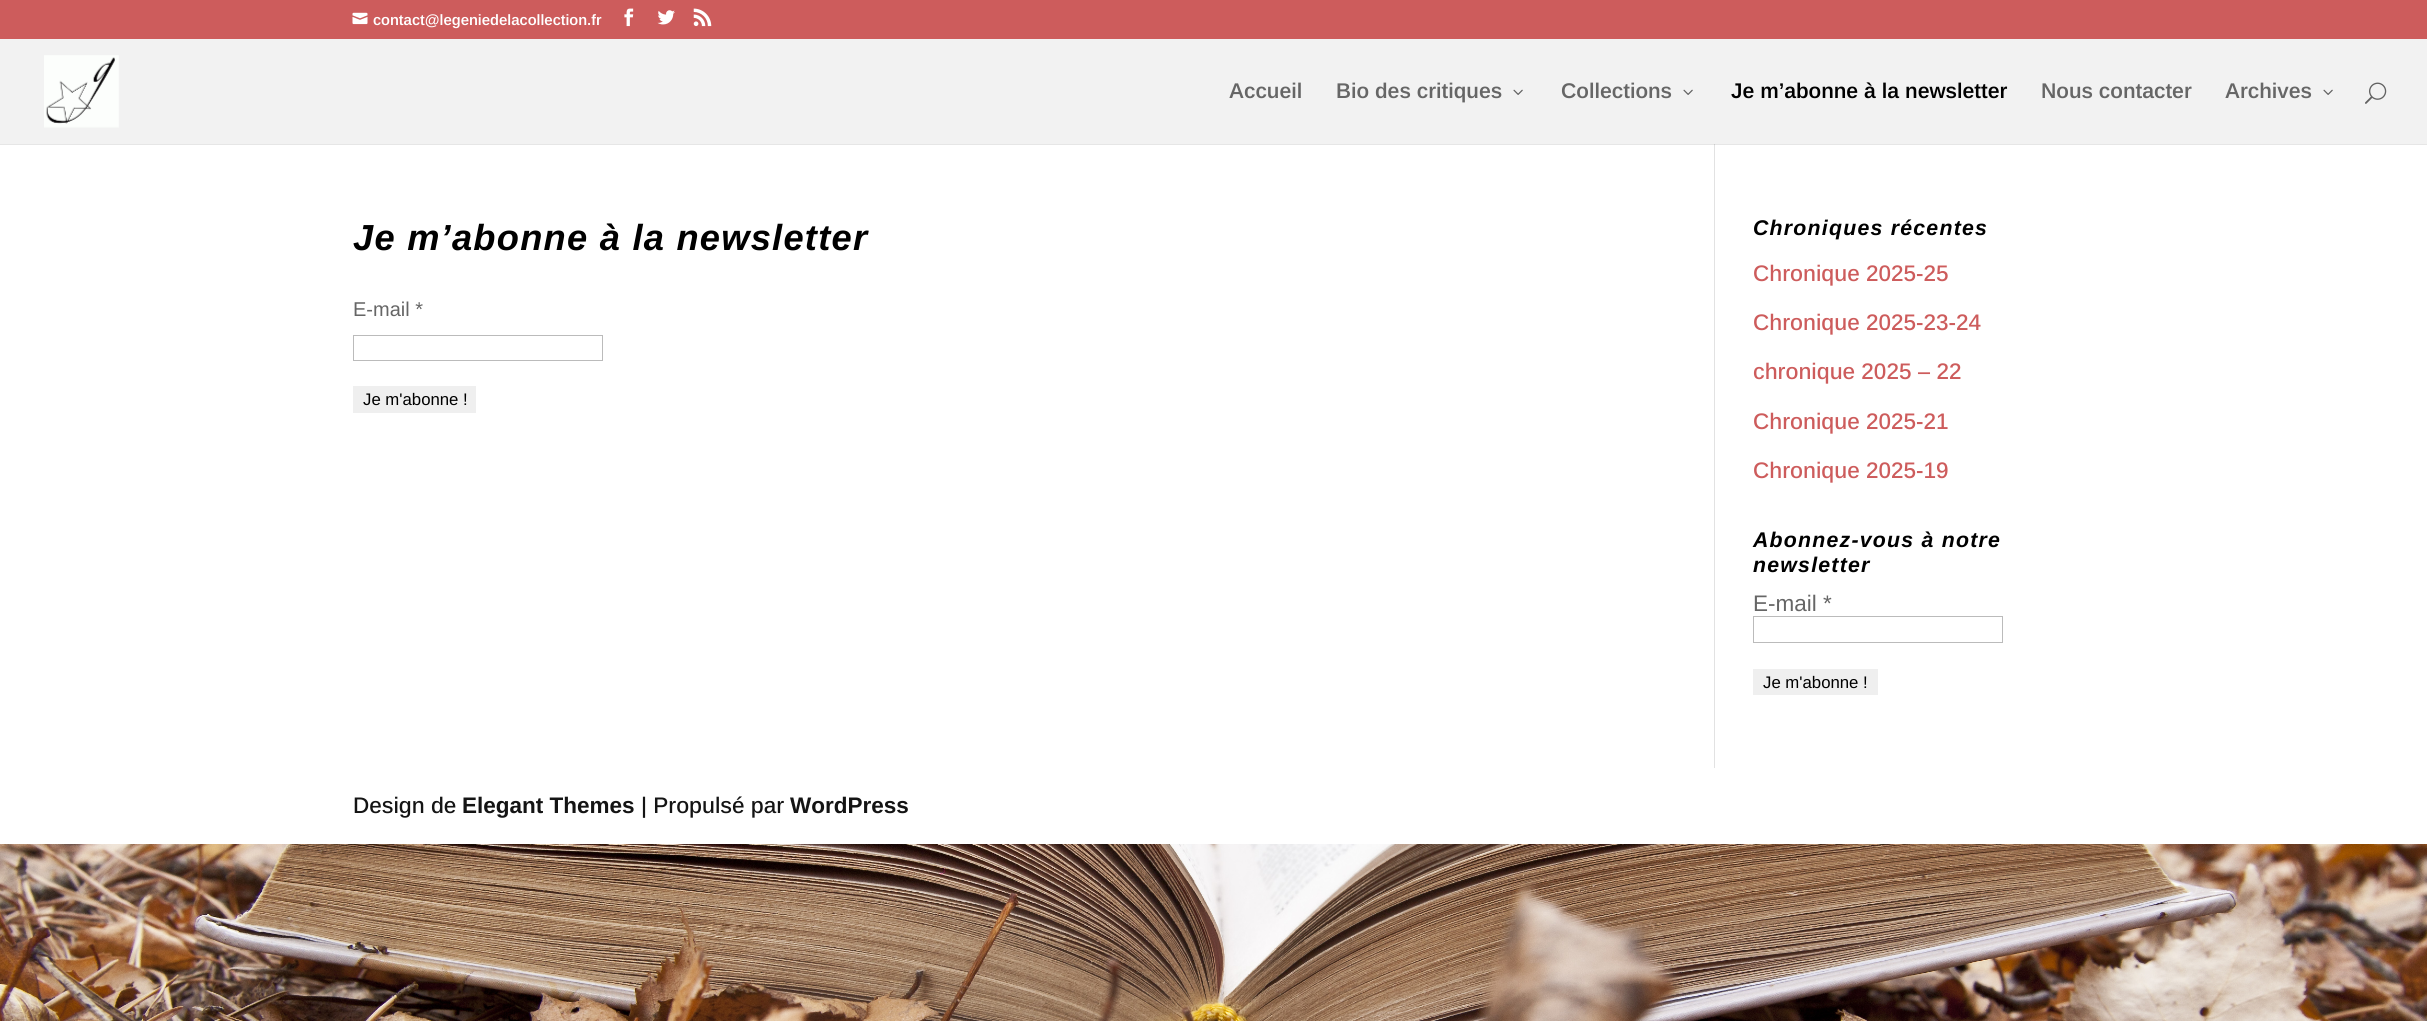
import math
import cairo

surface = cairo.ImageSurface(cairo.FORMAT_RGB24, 2427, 1021)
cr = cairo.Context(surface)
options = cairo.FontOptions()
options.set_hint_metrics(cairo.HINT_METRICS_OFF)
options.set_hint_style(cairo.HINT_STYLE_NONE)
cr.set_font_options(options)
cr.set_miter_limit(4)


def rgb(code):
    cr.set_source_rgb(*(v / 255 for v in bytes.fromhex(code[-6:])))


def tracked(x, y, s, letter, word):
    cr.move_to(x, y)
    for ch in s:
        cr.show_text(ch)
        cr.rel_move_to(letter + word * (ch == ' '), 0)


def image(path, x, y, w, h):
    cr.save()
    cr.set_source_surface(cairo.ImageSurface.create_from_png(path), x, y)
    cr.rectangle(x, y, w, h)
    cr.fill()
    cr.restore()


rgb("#ffffff")
cr.paint()
image("img/1.png", 0, 844, 2427, 177)
rgb("#cd5c5c")
cr.rectangle(0, 0, 2427, 39)
cr.fill()
image("img/2.png", 352, 12, 16, 13)
image("img/3.png", 624, 8, 10, 19)
image("img/4.png", 657, 10, 18, 15)
image("img/5.png", 693, 8, 19, 19)
rgb("#e2e2e2")
cr.rectangle(1714, 144, 1, 624)
cr.fill()
cr.set_source_rgba(0, 0, 0, 0.1)
cr.new_path()
cr.move_to(0, 144)
cr.line_to(0, 145)
cr.line_to(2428, 145)
cr.line_to(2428, 40)
cr.line_to(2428, 144)
cr.close_path()
cr.fill()
rgb("#f2f2f2")
cr.rectangle(0, 39, 2427, 105)
cr.fill()
image("img/6.png", 44, 55, 75, 73)
image("img/7.png", 1513, 89, 10, 6)
image("img/7.png", 1683, 89, 10, 6)
image("img/7.png", 2323, 89, 10, 6)
image("img/8.png", 2365, 82, 22, 22)
cr.rectangle(353.5, 335.5, 249, 25)
rgb("#bbbbbb")
cr.set_line_width(1)
cr.stroke()
rgb("#efefef")
cr.rectangle(353, 386, 123, 27)
cr.fill()
cr.rectangle(1753.5, 616.5, 249, 26)
rgb("#bbbbbb")
cr.stroke()
rgb("#efefef")
cr.rectangle(1753, 669, 125, 26)
cr.fill()
cr.select_font_face("Arimo SemiBold")
cr.set_font_size(15)
rgb("#ffffff")
cr.move_to(373, 25)
cr.show_text("contact@legeniedelacollection.fr")
cr.set_font_size(21.25)
rgb("#666666")
for x, y, s in [
    (1229, 98, "Accueil"),
    (1336, 98, "Bio des critiques"),
    (1561, 98, "Collections"),
]:
    cr.move_to(x, y)
    cr.show_text(s)
rgb("#000000")
cr.move_to(1731, 98)
cr.show_text("Je m’abonne à la newsletter")
rgb("#666666")
cr.move_to(2041, 98)
cr.show_text("Nous contacter")
cr.move_to(2225, 98)
cr.show_text("Archives")
cr.select_font_face("Arimo", cairo.FONT_SLANT_ITALIC, cairo.FONT_WEIGHT_BOLD)
cr.set_font_size(36.25)
rgb("#000000")
tracked(353, 250, "Je m’abonne à la newsletter", 1.25, 0)
cr.select_font_face("Liberation Sans")
cr.set_font_size(20)
rgb("#666666")
cr.move_to(353, 316)
cr.show_text("E-mail *")
cr.set_font_size(16.75)
rgb("#000000")
cr.move_to(363, 405)
cr.show_text("Je m'abonne !")
cr.select_font_face("Arimo", cairo.FONT_SLANT_ITALIC, cairo.FONT_WEIGHT_BOLD)
cr.set_font_size(21.25)
tracked(1753, 235, "Chroniques récentes", 1.25, 0)
cr.select_font_face("Arimo Medium")
cr.set_font_size(22.5)
rgb("#cd5c5c")
for x, y, s in [
    (1753, 281, "Chronique 2025-25"),
    (1753, 330, "Chronique 2025-23-24"),
    (1753, 379, "chronique 2025 – 22"),
    (1753, 429, "Chronique 2025-21"),
    (1753, 478, "Chronique 2025-19"),
]:
    cr.move_to(x, y)
    cr.show_text(s)
cr.select_font_face("Arimo", cairo.FONT_SLANT_ITALIC, cairo.FONT_WEIGHT_BOLD)
cr.set_font_size(21.25)
rgb("#000000")
tracked(1753, 547, "Abonnez-vous à notre", 1.25, 0)
tracked(1753, 572, "newsletter", 1.25, 0)
cr.select_font_face("Arimo")
cr.set_font_size(22.5)
rgb("#666666")
cr.move_to(1753, 611)
cr.show_text("E-mail *")
cr.set_font_size(16.75)
rgb("#000000")
cr.move_to(1763, 688)
cr.show_text("Je m'abonne !")
cr.select_font_face("Arimo Medium")
cr.set_font_size(22.5)
rgb("#141414")
cr.move_to(353, 813)
cr.show_text("Design de")
cr.select_font_face("Arimo", cairo.FONT_SLANT_NORMAL, cairo.FONT_WEIGHT_BOLD)
cr.move_to(462, 813)
cr.show_text("Elegant Themes")
cr.select_font_face("Arimo Medium")
cr.move_to(641, 813)
cr.show_text("| Propulsé par")
cr.select_font_face("Arimo", cairo.FONT_SLANT_NORMAL, cairo.FONT_WEIGHT_BOLD)
cr.move_to(790, 813)
cr.show_text("WordPress")
surface.write_to_png("page.png")
